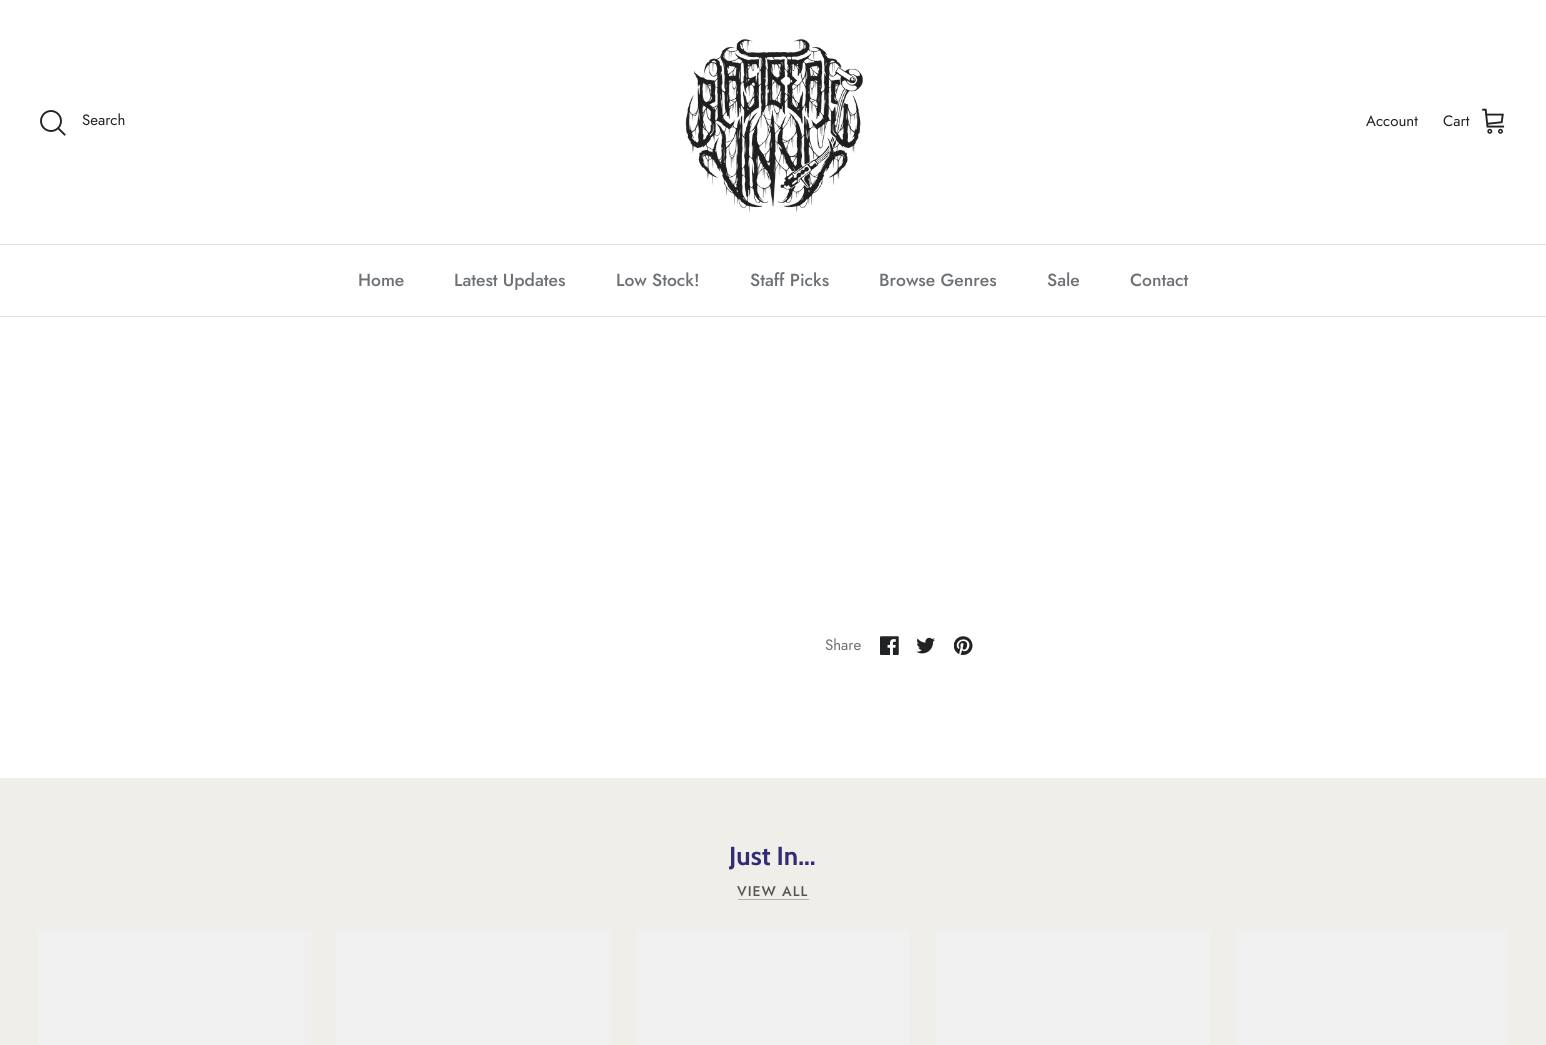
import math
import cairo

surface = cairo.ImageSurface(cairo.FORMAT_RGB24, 1546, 1045)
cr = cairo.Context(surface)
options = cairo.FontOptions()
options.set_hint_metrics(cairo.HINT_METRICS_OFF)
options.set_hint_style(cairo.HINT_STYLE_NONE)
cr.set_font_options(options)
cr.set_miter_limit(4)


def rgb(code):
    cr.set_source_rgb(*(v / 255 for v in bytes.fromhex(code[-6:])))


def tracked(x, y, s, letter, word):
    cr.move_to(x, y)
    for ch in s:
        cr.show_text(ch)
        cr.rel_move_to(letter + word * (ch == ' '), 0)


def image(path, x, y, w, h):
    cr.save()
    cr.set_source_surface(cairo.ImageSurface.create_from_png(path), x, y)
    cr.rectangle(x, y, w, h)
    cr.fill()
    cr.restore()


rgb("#ffffff")
cr.paint()
rgb("#e2e2e2")
cr.rectangle(0, 244, 1546, 1)
cr.fill()
cr.arc(51, 121, 10, 0, 2 * math.pi)
rgb("#202223")
cr.set_line_width(1.9)
cr.stroke()
cr.new_path()
cr.move_to(58.5, 128.5)
cr.line_to(64.5, 134.5)
cr.set_line_cap(cairo.LINE_CAP_SQUARE)
cr.stroke()
image("img/1.png", 685, 39, 178, 173)
image("img/2.png", 1482, 108, 23, 26)
rgb("#e2e2e2")
cr.rectangle(0, 316, 1546, 1)
cr.fill()
image("img/3.png", 880, 636, 19, 19)
image("img/4.png", 916, 637, 19, 17)
image("img/5.png", 954, 636, 19, 19)
for x, y, w, h, color in [
    (0, 778, 1546, 267, "#f0eee8"),
    (738, 899, 71, 1, "#b2b1ad"),
    (38, 930, 273, 115, "#f0f0f0"),
    (336, 930, 275, 115, "#f0f0f0"),
    (636, 930, 274, 115, "#f0f0f0"),
    (935, 930, 275, 115, "#f0f0f0"),
    (1235, 930, 274, 115, "#f0f0f0"),
]:
    rgb(color)
    cr.rectangle(x, y, w, h)
    cr.fill()
cr.select_font_face("Jost")
cr.set_font_size(15)
rgb("#202223")
for x, y, s in [
    (82, 125, "Search"),
    (1366, 126, "Account"),
    (1443, 126, "Cart"),
]:
    cr.move_to(x, y)
    cr.show_text(s)
cr.select_font_face("Jost Medium")
cr.set_font_size(17.5)
rgb("#6d7175")
for x, y, s in [
    (358, 286, "Home"),
    (454, 286, "Latest Updates"),
    (616, 286, "Low Stock!"),
    (750, 286, "Staff Picks"),
    (879, 286, "Browse Genres"),
    (1047, 286, "Sale"),
    (1130, 286, "Contact"),
]:
    cr.move_to(x, y)
    cr.show_text(s)
cr.select_font_face("Jost")
cr.set_font_size(15)
cr.move_to(825, 650)
cr.show_text("Share")
cr.select_font_face("Cabin", cairo.FONT_SLANT_NORMAL, cairo.FONT_WEIGHT_BOLD)
cr.set_font_size(26)
rgb("#322b76")
cr.move_to(729, 865)
cr.show_text("Just In...")
cr.select_font_face("Jost Medium")
cr.set_font_size(14)
rgb("#545554")
tracked(737, 896, "VIEW ALL", 1, 0)
surface.write_to_png("page.png")
